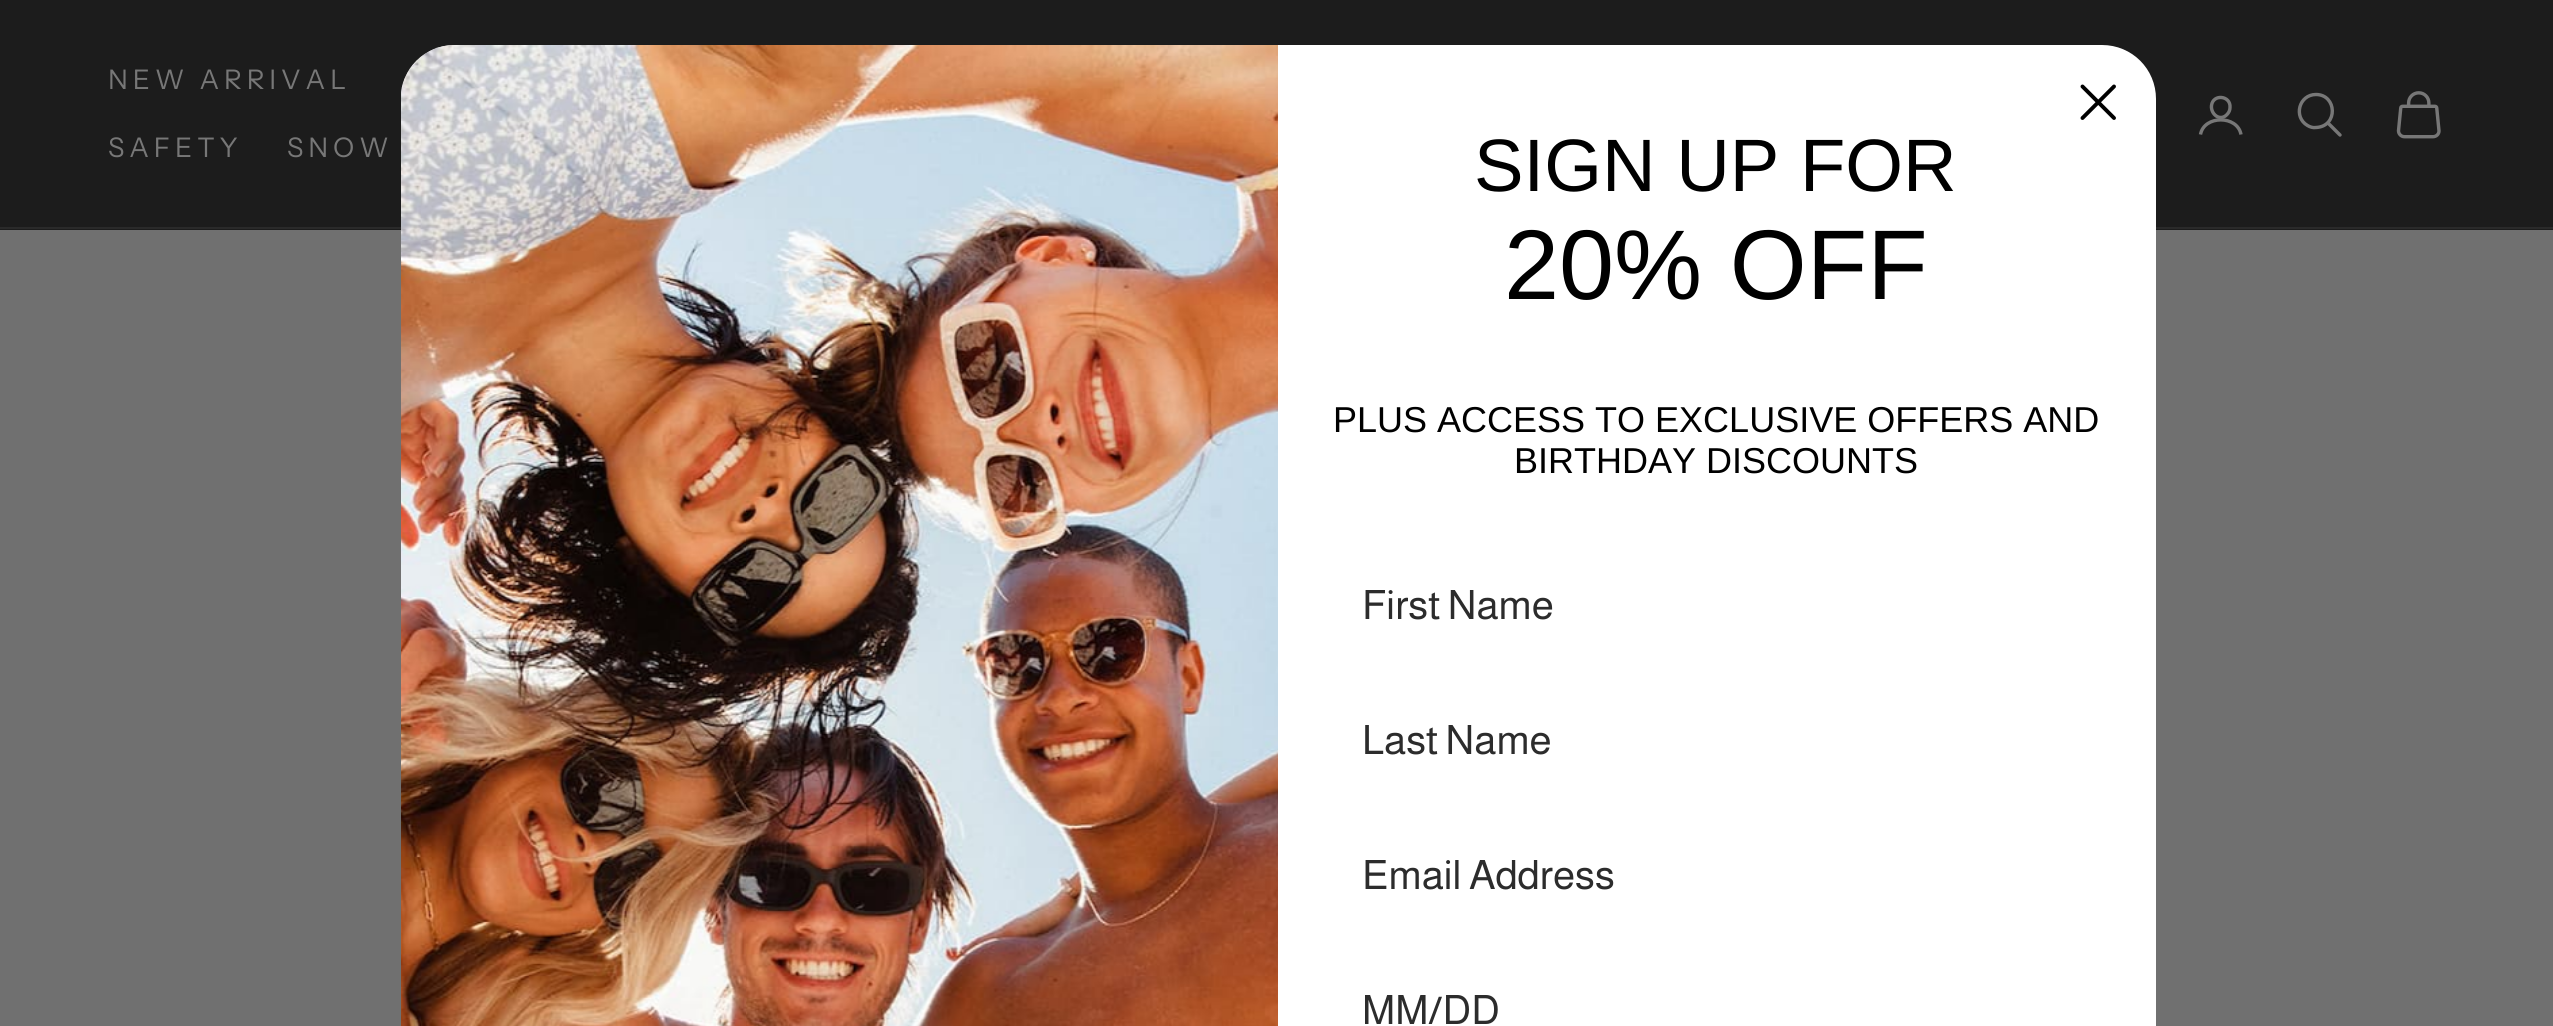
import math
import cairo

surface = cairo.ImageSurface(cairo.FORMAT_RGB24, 2553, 1026)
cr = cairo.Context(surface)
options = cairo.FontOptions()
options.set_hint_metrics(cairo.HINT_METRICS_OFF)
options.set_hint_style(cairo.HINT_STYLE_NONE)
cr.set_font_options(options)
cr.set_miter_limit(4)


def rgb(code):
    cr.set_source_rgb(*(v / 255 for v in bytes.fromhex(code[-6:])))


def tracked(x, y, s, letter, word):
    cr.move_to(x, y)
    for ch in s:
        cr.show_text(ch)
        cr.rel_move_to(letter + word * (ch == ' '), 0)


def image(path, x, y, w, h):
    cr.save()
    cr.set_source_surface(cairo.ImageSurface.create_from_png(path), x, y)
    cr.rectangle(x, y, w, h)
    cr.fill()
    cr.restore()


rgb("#707070")
cr.paint()
rgb("#1c1c1c")
cr.rectangle(0, 0, 2553, 230)
cr.fill()
rgb("#2a2a2a")
cr.rectangle(0, 227, 2553, 2)
cr.fill()
cr.new_path()
cr.move_to(2230, 107.5)
cr.curve_to(2230, 110, 2229, 112.5, 2227, 114.5)
cr.curve_to(2220, 122, 2210.5, 114, 2211.5, 105.5)
cr.curve_to(2213, 93.5, 2231, 95.5, 2230, 107.5)
cr.close_path()
rgb("#777777")
cr.set_line_width(3.4)
cr.set_line_cap(cairo.LINE_CAP_ROUND)
cr.set_line_join(cairo.LINE_JOIN_ROUND)
cr.stroke()
cr.new_path()
cr.move_to(2200.5, 134.5)
cr.curve_to(2204, 115, 2237.5, 115, 2241, 134.5)
cr.set_line_cap(cairo.LINE_CAP_BUTT)
cr.set_line_join(cairo.LINE_JOIN_MITER)
cr.stroke()
cr.new_path()
cr.move_to(2316, 94.5)
cr.curve_to(2299, 94.5, 2293, 117, 2307.5, 125.5)
cr.curve_to(2310, 127, 2313, 128, 2316, 127.5)
cr.curve_to(2338.5, 126.5, 2337, 94.5, 2316, 94.5)
cr.close_path()
cr.stroke()
cr.new_path()
cr.move_to(2328.5, 123.5)
cr.line_to(2340, 135)
cr.set_line_cap(cairo.LINE_CAP_ROUND)
cr.stroke()
image("img/1.png", 2396, 91, 45, 48)
rgb("#ffffff")
cr.new_path()
cr.move_to(455, 45)
cr.line_to(2102, 45)
cr.curve_to(2132, 45, 2156, 69, 2156, 99)
cr.line_to(2156, 1026)
cr.line_to(401, 1026)
cr.line_to(401, 99)
cr.curve_to(401, 69, 425, 45, 455, 45)
cr.close_path()
cr.fill()
cr.new_path()
cr.move_to(2082.5, 86.5)
cr.line_to(2114, 118)
cr.move_to(2082.5, 118)
cr.line_to(2114, 86.5)
cr.close_path()
rgb("#000000")
cr.set_line_width(3.9)
cr.set_line_join(cairo.LINE_JOIN_ROUND)
cr.stroke()
image("img/2.png", 401, 45, 877, 981)
cr.select_font_face("Instrument Sans")
cr.set_font_size(27)
rgb("#777777")
for x, y, s in [
    (108, 89, "NEW ARRIVAL"),
    (108, 157, "SAFETY"),
    (287, 157, "SNOW"),
]:
    tracked(x, y, s, 4.9, 0)
cr.select_font_face("Liberation Sans")
cr.set_font_size(74.25)
rgb("#000000")
cr.move_to(1474, 191)
cr.show_text("SIGN UP FOR")
cr.set_font_size(99)
cr.move_to(1504, 299)
cr.show_text("20% OFF")
cr.set_font_size(36)
cr.move_to(1333, 432)
cr.show_text("PLUS ACCESS TO EXCLUSIVE OFFERS AND")
cr.move_to(1514, 473)
cr.show_text("BIRTHDAY DISCOUNTS")
cr.select_font_face("Almarai")
cr.set_font_size(40.5)
rgb("#2c2c2c")
for x, y, s in [
    (1362, 619, "First Name"),
    (1362, 754, "Last Name"),
    (1362, 889, "Email Address"),
    (1362, 1024, "MM/DD"),
]:
    cr.move_to(x, y)
    cr.show_text(s)
surface.write_to_png("page.png")
